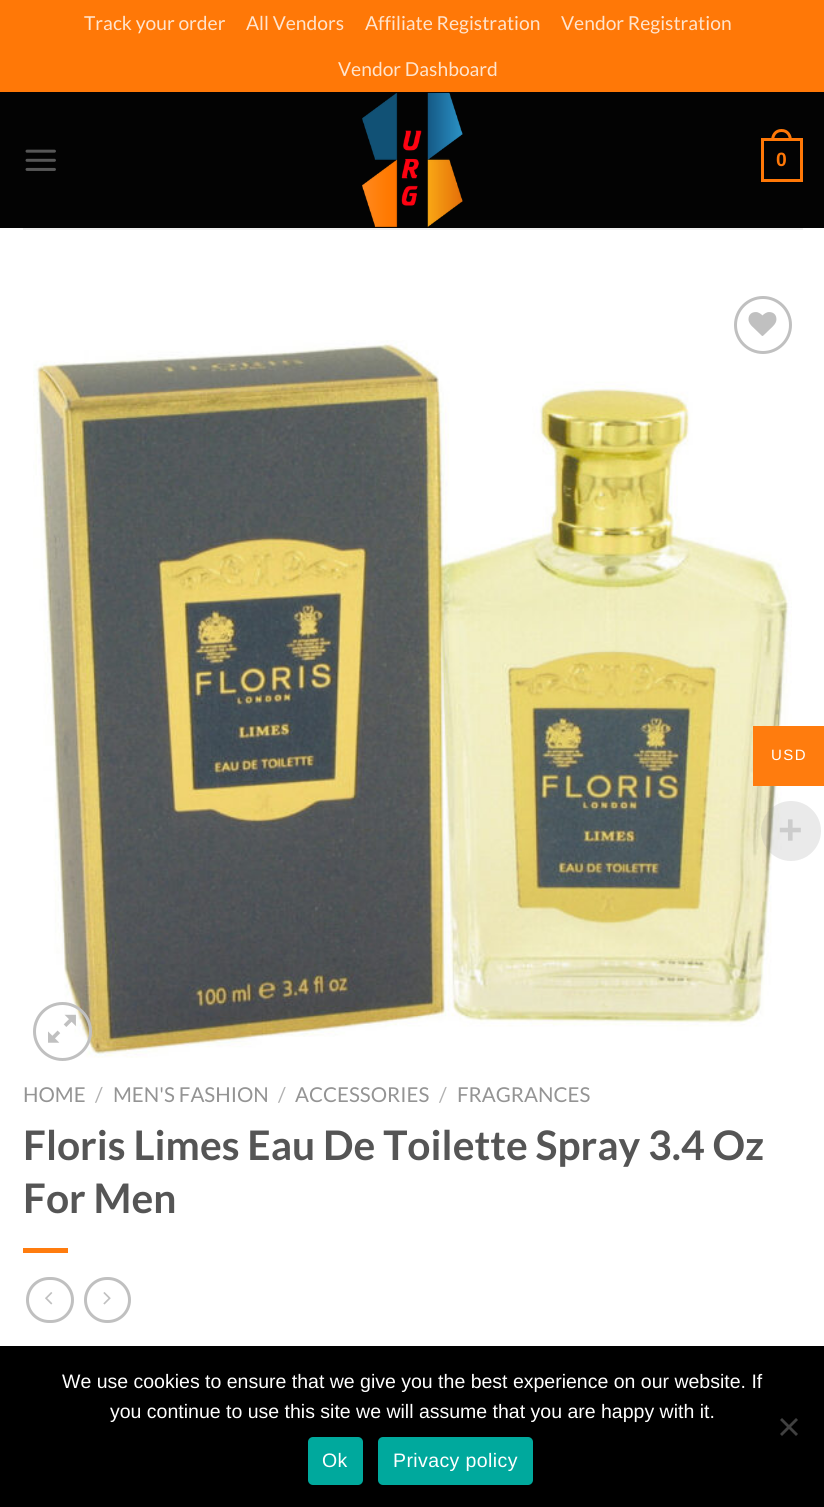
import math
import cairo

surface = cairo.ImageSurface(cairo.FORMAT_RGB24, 824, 1507)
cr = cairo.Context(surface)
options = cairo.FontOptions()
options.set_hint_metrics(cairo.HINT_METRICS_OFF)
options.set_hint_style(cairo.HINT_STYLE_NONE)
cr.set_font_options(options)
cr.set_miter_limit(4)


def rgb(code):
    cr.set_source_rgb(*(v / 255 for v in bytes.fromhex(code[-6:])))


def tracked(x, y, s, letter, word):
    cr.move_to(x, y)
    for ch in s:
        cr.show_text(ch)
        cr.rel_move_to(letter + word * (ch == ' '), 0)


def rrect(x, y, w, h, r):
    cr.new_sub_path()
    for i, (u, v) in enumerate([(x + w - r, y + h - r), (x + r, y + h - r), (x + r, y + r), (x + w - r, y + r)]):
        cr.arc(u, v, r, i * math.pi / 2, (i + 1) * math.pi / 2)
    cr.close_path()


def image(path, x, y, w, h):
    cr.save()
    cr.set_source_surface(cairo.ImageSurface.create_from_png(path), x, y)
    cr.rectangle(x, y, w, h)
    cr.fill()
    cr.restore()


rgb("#ffffff")
cr.paint()
rgb("#ff7807")
cr.rectangle(0, 0, 824, 92)
cr.fill()
rgb("#030303")
cr.rectangle(0, 92, 824, 136)
cr.fill()
image("img/1.png", 25, 149, 31, 22)
image("img/2.png", 362, 92, 101, 136)
cr.rectangle(762.5, 139.5, 39, 41)
rgb("#ff7807")
cr.set_line_width(3)
cr.stroke()
cr.set_fill_rule(cairo.FILL_RULE_EVEN_ODD)
cr.new_path()
cr.move_to(781.5, 129)
cr.curve_to(788.5, 129, 792, 134.5, 792, 141)
cr.line_to(771, 141)
cr.curve_to(771, 134.5, 774.5, 129, 781.5, 129)
cr.close_path()
cr.move_to(781.5, 132)
cr.curve_to(787, 132, 789, 136.5, 789, 141)
cr.line_to(774, 141)
cr.curve_to(774, 136.5, 776, 132, 781.5, 132)
cr.close_path()
cr.fill()
rgb("#f1f1f1")
cr.rectangle(23, 228, 780, 2)
cr.fill()
image("img/4.png", 33, 340, 759, 718)
cr.arc(763, 325, 27.5, 0, 2 * math.pi)
rgb("#c0c0c0")
cr.stroke()
image("img/3.png", 748, 312, 29, 24)
cr.arc(62.5, 1031.5, 28, 0, 2 * math.pi)
cr.stroke()
image("img/5.png", 48, 1014, 28, 29)
rgb("#ff7c0e")
cr.rectangle(23, 1248, 45, 5)
cr.fill()
rrect(27.5, 1278.5, 45, 43, 21.5)
rgb("#c0c0c0")
cr.stroke()
image("img/6.png", 45, 1292, 8, 13)
rrect(85.5, 1278.5, 44, 43, 21.5)
cr.stroke()
image("img/7.png", 103, 1292, 8, 13)
rgb("#ff7c0e")
cr.rectangle(753, 726, 71, 60)
cr.fill()
cr.set_source_rgba(0.6, 0.6, 0.6, 0.2)
cr.arc(791, 831, 30, 0, 2 * math.pi)
cr.fill()
rgb("#000000")
cr.rectangle(0, 1346, 824, 161)
cr.fill()
rgb("#404040")
cr.set_fill_rule(cairo.FILL_RULE_WINDING)
cr.new_path()
cr.move_to(796, 1418)
cr.line_to(798, 1420)
cr.line_to(782, 1436)
cr.line_to(780, 1434)
cr.close_path()
cr.fill()
cr.new_path()
cr.move_to(780, 1420)
cr.line_to(782, 1418)
cr.line_to(798, 1434)
cr.line_to(796, 1436)
cr.close_path()
cr.fill()
rgb("#00a99d")
rrect(308, 1437, 55, 48, 5)
cr.fill()
rrect(378, 1437, 155, 48, 5)
cr.fill()
cr.select_font_face("Lato")
cr.set_font_size(19.25)
rgb("#ffe4cd")
for x, y, s in [
    (84, 30, "Track your order"),
    (246, 30, "All Vendors"),
    (365, 30, "Affiliate Registration"),
    (561, 30, "Vendor Registration"),
    (338, 76, "Vendor Dashboard"),
]:
    cr.move_to(x, y)
    cr.show_text(s)
cr.select_font_face("Liberation Sans", cairo.FONT_SLANT_NORMAL, cairo.FONT_WEIGHT_BOLD)
rgb("#ff7807")
cr.move_to(776, 166)
cr.show_text("0")
cr.select_font_face("Lato")
cr.set_font_size(20.5)
rgb("#949494")
cr.move_to(23, 1102)
cr.show_text("HOME")
rgb("#b2b2b2")
cr.move_to(95, 1102)
cr.show_text("/")
rgb("#949494")
cr.move_to(113, 1102)
cr.show_text("MEN'S FASHION")
rgb("#b2b2b2")
cr.move_to(278, 1102)
cr.show_text("/")
rgb("#949494")
cr.move_to(295, 1102)
cr.show_text("ACCESSORIES")
rgb("#b2b2b2")
cr.move_to(439, 1102)
cr.show_text("/")
rgb("#949494")
cr.move_to(457, 1102)
cr.show_text("FRAGRANCES")
cr.select_font_face("Lato", cairo.FONT_SLANT_NORMAL, cairo.FONT_WEIGHT_BOLD)
cr.set_font_size(40.75)
rgb("#555555")
cr.move_to(23, 1160)
cr.show_text("Floris Limes Eau De Toilette Spray 3.4 Oz")
cr.move_to(23, 1213)
cr.show_text("For Men")
cr.select_font_face("Liberation Sans")
cr.set_font_size(15)
rgb("#ffffff")
tracked(771, 760, "USD", 1.5, 0)
cr.select_font_face("Liberation Sans", cairo.FONT_SLANT_NORMAL, cairo.FONT_WEIGHT_BOLD)
cr.set_font_size(42)
rgb("#cccccc")
cr.move_to(778, 844)
cr.show_text("+")
cr.select_font_face("Liberation Sans")
cr.set_font_size(19.5)
rgb("#ffffff")
cr.move_to(62, 1388)
cr.show_text("We use cookies to ensure that we give you the best experience on our website. If")
cr.move_to(110, 1418)
cr.show_text("you continue to use this site we will assume that you are happy with it.")
tracked(322, 1467, "Ok", 0.4, 0)
tracked(393, 1467, "Privacy policy", 0.4, 0)
surface.write_to_png("page.png")
